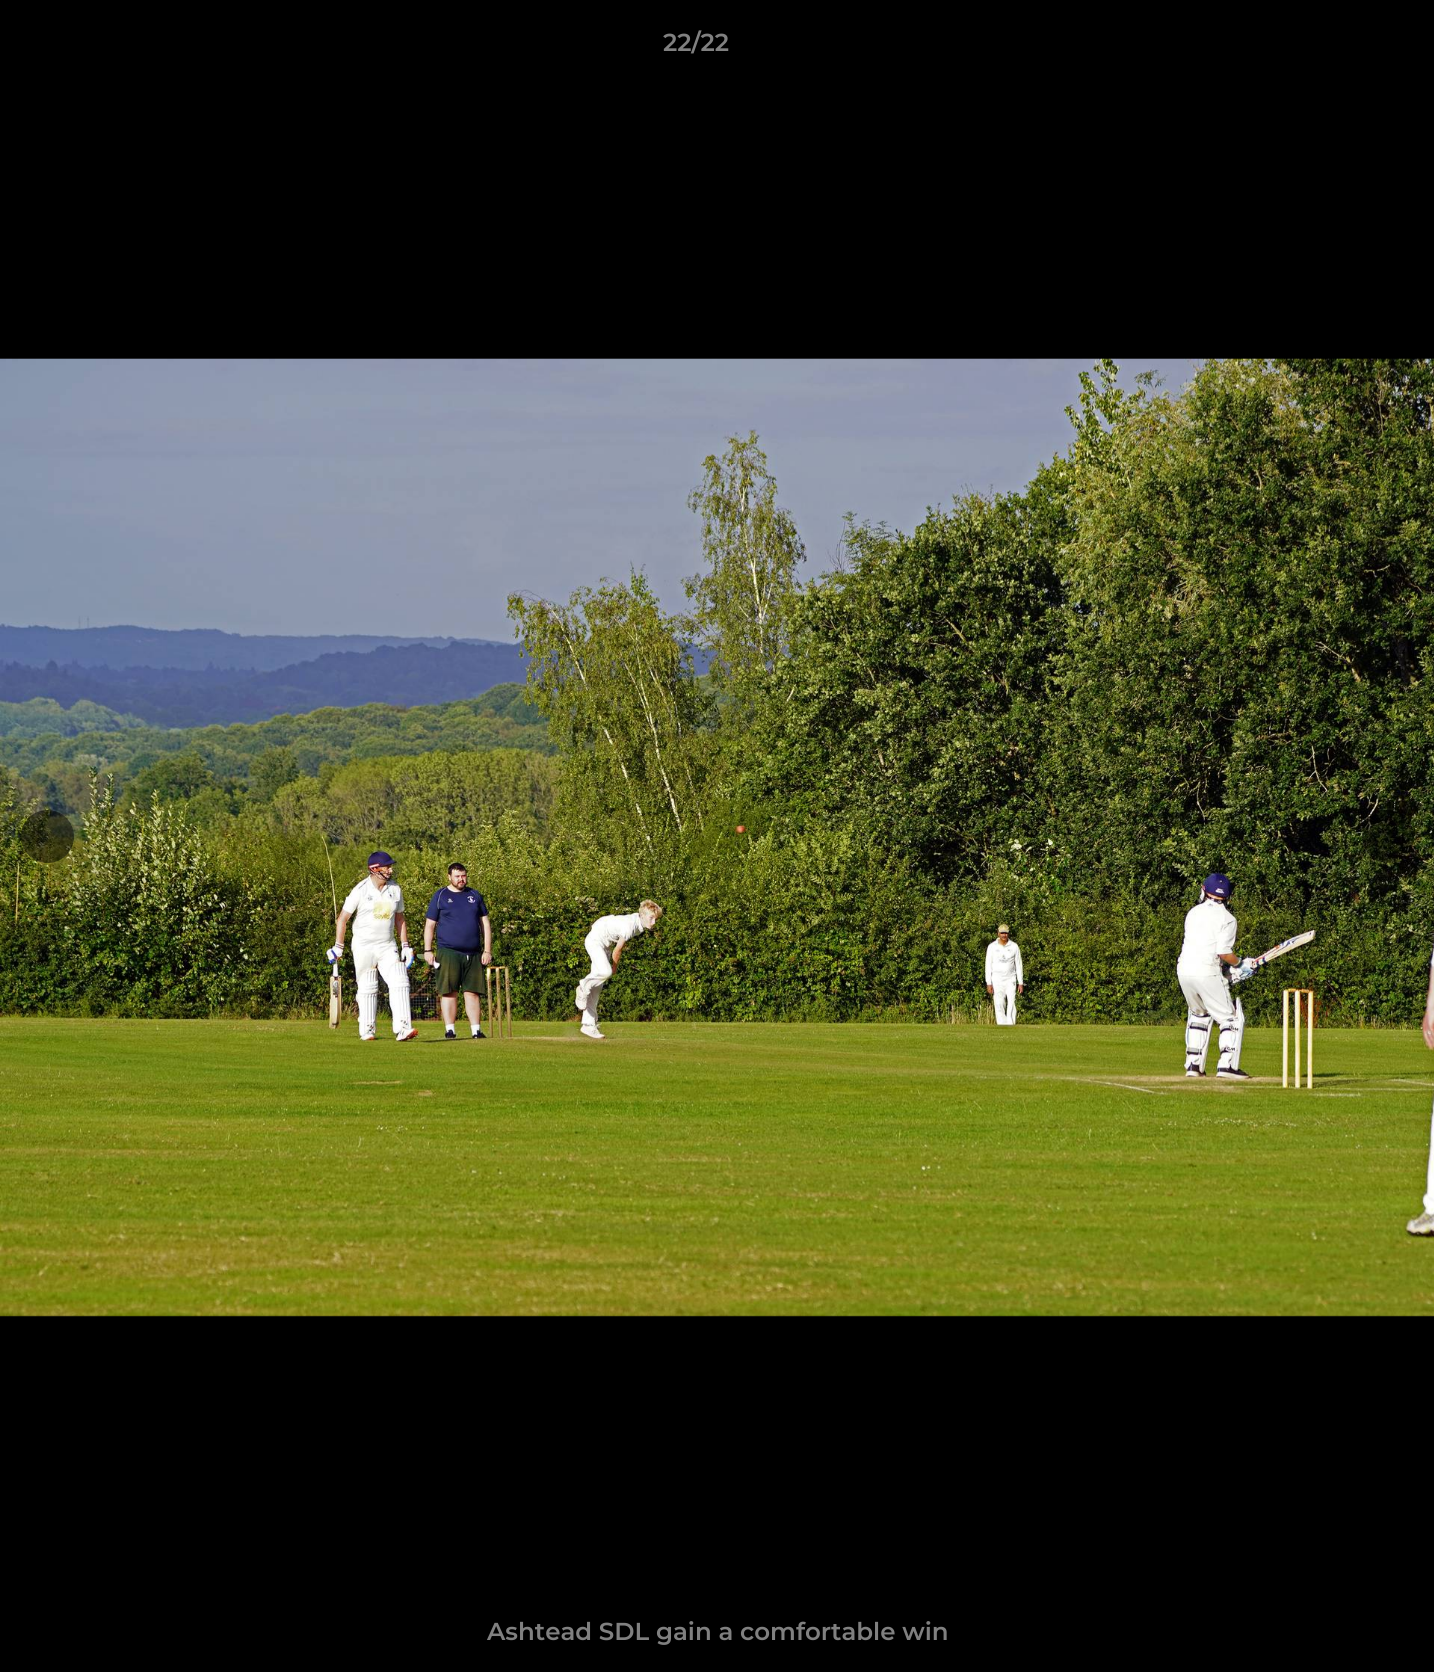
import math
import cairo

surface = cairo.ImageSurface(cairo.FORMAT_RGB24, 1434, 1672)
cr = cairo.Context(surface)
options = cairo.FontOptions()
options.set_hint_metrics(cairo.HINT_METRICS_OFF)
options.set_hint_style(cairo.HINT_STYLE_NONE)
cr.set_font_options(options)
cr.set_miter_limit(4)


def rgb(code):
    cr.set_source_rgb(*(v / 255 for v in bytes.fromhex(code[-6:])))


def rrect(x, y, w, h, r):
    cr.new_sub_path()
    for i, (u, v) in enumerate([(x + w - r, y + h - r), (x + r, y + h - r), (x + r, y + r), (x + w - r, y + r)]):
        cr.arc(u, v, r, i * math.pi / 2, (i + 1) * math.pi / 2)
    cr.close_path()


def image(path, x, y, w, h):
    cr.save()
    cr.set_source_surface(cairo.ImageSurface.create_from_png(path), x, y)
    cr.rectangle(x, y, w, h)
    cr.fill()
    cr.restore()


rgb("#000000")
cr.paint()
image("img/1.png", 0, 358, 1434, 959)
cr.set_source_rgba(0, 0, 0, 0.5)
cr.arc(47.5, 836.5, 26.5, 0, 2 * math.pi)
cr.fill()
rrect(1362, 810, 52, 53, 26)
cr.fill()
cr.select_font_face("Montserrat SemiBold")
cr.set_font_size(24.5)
rgb("#808080")
cr.move_to(663, 51)
cr.show_text("22/22")
cr.move_to(487, 1640)
cr.show_text("Ashtead SDL gain a comfortable win")
surface.write_to_png("page.png")
